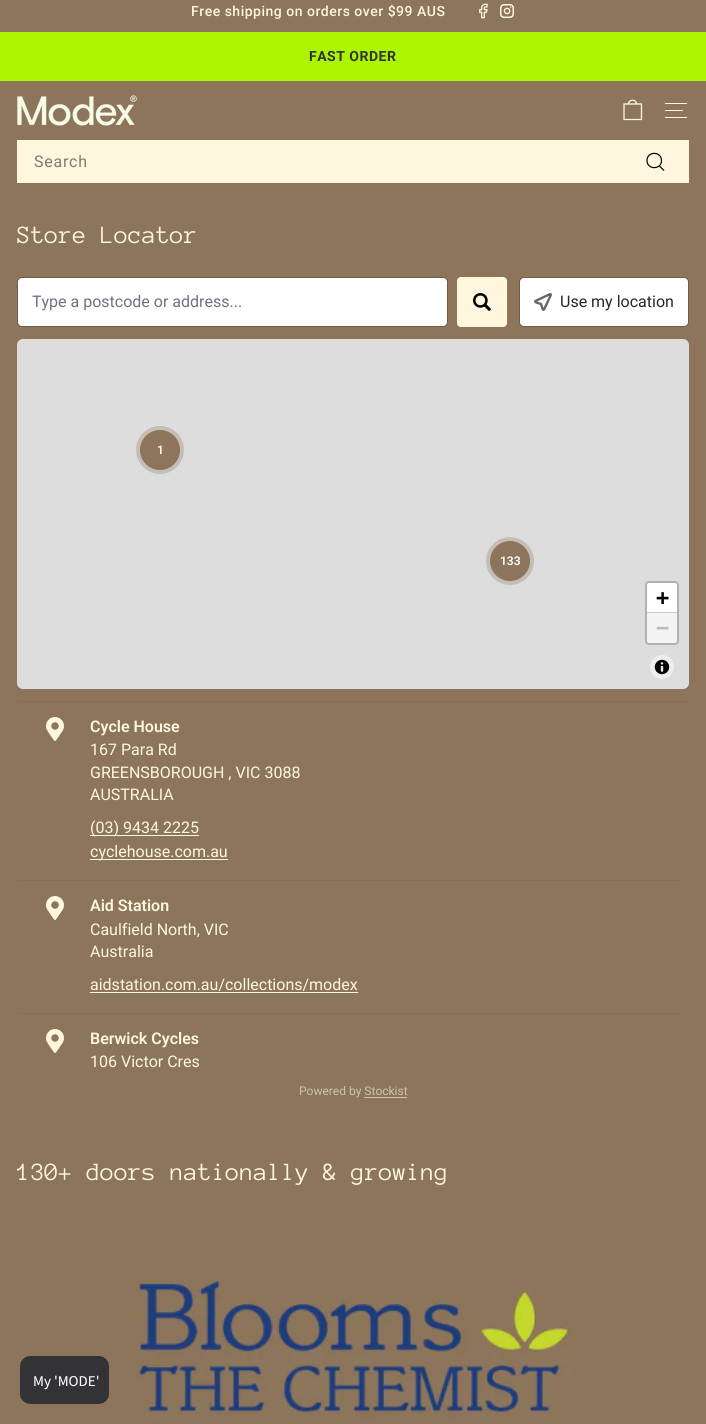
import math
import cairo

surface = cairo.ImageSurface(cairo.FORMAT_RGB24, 706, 1424)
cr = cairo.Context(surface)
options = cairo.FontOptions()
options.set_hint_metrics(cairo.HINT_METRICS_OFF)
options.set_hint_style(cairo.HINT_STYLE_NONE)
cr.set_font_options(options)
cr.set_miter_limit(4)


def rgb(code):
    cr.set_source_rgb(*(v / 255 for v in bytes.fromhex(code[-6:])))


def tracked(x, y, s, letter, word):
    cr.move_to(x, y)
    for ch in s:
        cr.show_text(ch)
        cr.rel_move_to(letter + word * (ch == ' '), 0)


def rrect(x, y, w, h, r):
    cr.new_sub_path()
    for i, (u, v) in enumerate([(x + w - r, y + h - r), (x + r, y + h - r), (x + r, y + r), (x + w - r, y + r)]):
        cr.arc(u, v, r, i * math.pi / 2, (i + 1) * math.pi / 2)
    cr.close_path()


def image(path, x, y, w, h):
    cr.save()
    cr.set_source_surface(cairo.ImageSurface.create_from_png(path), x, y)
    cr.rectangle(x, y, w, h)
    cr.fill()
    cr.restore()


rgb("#8c755b")
cr.paint()
image("img/1.png", 479, 3, 9, 16)
image("img/2.png", 500, 4, 14, 14)
rgb("#acf500")
cr.rectangle(0, 32, 706, 49)
cr.fill()
image("img/3.png", 17, 95, 120, 31)
cr.new_path()
cr.move_to(628.5, 104)
cr.curve_to(628.5, 99, 636.5, 99, 636.5, 104)
cr.move_to(624, 104)
cr.line_to(641.5, 104)
cr.line_to(641.5, 119.5)
cr.line_to(624, 119.5)
cr.close_path()
rgb("#fff6de")
cr.set_line_width(1.3)
cr.stroke()
for x, y, w, h, color in [
    (665, 103, 22, 1, "#fff6de"),
    (665, 110, 18, 1, "#fff6de"),
    (665, 117, 22, 1, "#fff6de"),
    (17, 140, 672, 43, "#fff6de"),
]:
    rgb(color)
    cr.rectangle(x, y, w, h)
    cr.fill()
cr.new_path()
cr.move_to(661.5, 160.5)
cr.curve_to(661.5, 170, 647, 170, 647, 160.5)
cr.curve_to(647, 151, 661.5, 151, 661.5, 160.5)
cr.close_path()
cr.move_to(664, 170.5)
cr.line_to(659.5, 166)
rgb("#000000")
cr.set_line_width(1.2)
cr.stroke()
rrect(17.5, 277.5, 430, 49, 4.5)
rgb("#705e49")
cr.set_line_width(1)
cr.stroke()
rgb("#ffffff")
rrect(18, 278, 429, 48, 4)
cr.fill()
rgb("#fff6de")
rrect(457, 277, 50, 50, 4)
cr.fill()
image("img/4.png", 473, 293, 18, 18)
rrect(519.5, 277.5, 169, 49, 4.5)
rgb("#705e49")
cr.stroke()
rgb("#ffffff")
rrect(520, 278, 168, 48, 4)
cr.fill()
image("img/5.png", 534, 293, 18, 18)
rgb("#dddddd")
rrect(17, 339, 672, 350, 6)
cr.fill()
rgb("#c5beb6")
cr.arc(160, 450, 24, 0, 2 * math.pi)
cr.fill()
rgb("#8c755b")
cr.arc(160, 450, 20, 0, 2 * math.pi)
cr.fill()
rgb("#c5beb6")
cr.arc(510, 561, 24, 0, 2 * math.pi)
cr.fill()
rgb("#8c755b")
cr.arc(510, 561, 20, 0, 2 * math.pi)
cr.fill()
rrect(646, 582, 32, 62, 3)
rgb("#b1b1b1")
cr.set_line_width(2)
cr.stroke()
rgb("#ffffff")
cr.new_path()
cr.move_to(649, 583)
cr.line_to(675, 583)
cr.curve_to(676, 583, 677, 584, 677, 585)
cr.line_to(677, 613)
cr.line_to(647, 613)
cr.line_to(647, 585)
cr.curve_to(647, 584, 648, 583, 649, 583)
cr.close_path()
cr.fill()
rgb("#cccccc")
cr.rectangle(647, 612, 30, 1)
cr.fill()
rgb("#f4f4f4")
cr.new_path()
cr.move_to(647, 613)
cr.line_to(677, 613)
cr.line_to(677, 641)
cr.curve_to(677, 642, 676, 643, 675, 643)
cr.line_to(649, 643)
cr.curve_to(648, 643, 647, 642, 647, 641)
cr.close_path()
cr.fill()
rgb("#eeeeee")
cr.arc(662, 667, 12, 0, 2 * math.pi)
cr.fill()
image("img/6.png", 654, 659, 16, 16)
rgb("#856f56")
cr.rectangle(17, 701, 672, 1)
cr.fill()
image("img/7.png", 46, 717, 18, 24)
rgb("#fff6de")
cr.rectangle(90, 835, 109, 1)
cr.fill()
cr.rectangle(90, 859, 138, 1)
cr.fill()
rgb("#856f56")
cr.new_path()
cr.move_to(17, 880)
cr.line_to(681, 880)
cr.line_to(681, 881)
cr.line_to(20, 881)
cr.close_path()
cr.fill()
image("img/7.png", 46, 896, 18, 24)
rgb("#fff6de")
cr.rectangle(90, 992, 268, 1)
cr.fill()
rgb("#856f56")
cr.new_path()
cr.move_to(17, 1013)
cr.line_to(681, 1013)
cr.line_to(681, 1014)
cr.line_to(20, 1014)
cr.close_path()
cr.fill()
image("img/7.png", 46, 1029, 18, 24)
rgb("#d1c2aa")
cr.rectangle(364, 1097, 43, 1)
cr.fill()
image("img/8.png", 135, 1278, 438, 141)
image("img/9.png", 20, 1356, 89, 48)
cr.select_font_face("Roboto Medium")
cr.set_font_size(14)
rgb("#fff6de")
tracked(191, 16, "Free shipping on orders over $99 AUS", 0.5, 0)
cr.select_font_face("Roboto", cairo.FONT_SLANT_NORMAL, cairo.FONT_WEIGHT_BOLD)
rgb("#323237")
tracked(309, 61, "FAST ORDER", 0.5, 0)
cr.select_font_face("Roboto")
cr.set_font_size(16)
rgb("#807b6f")
tracked(34, 167, "Search", 0.75, 0)
cr.select_font_face("Anonymous Pro")
cr.set_font_size(25.5)
rgb("#fff6de")
cr.move_to(17, 243)
cr.show_text("Store Locator")
cr.select_font_face("Roboto")
cr.set_font_size(16)
rgb("#6b7280")
cr.move_to(32, 307)
cr.show_text("Type a postcode or address...")
rgb("#262626")
cr.move_to(560, 307)
cr.show_text("Use my location")
cr.select_font_face("Roboto SemiBold")
cr.set_font_size(12)
rgb("#ffffff")
cr.move_to(157, 454)
cr.show_text("1")
cr.move_to(500, 565)
cr.show_text("133")
cr.select_font_face("DejaVu Sans Mono", cairo.FONT_SLANT_NORMAL, cairo.FONT_WEIGHT_BOLD)
cr.set_font_size(22)
rgb("#000000")
cr.move_to(656, 605)
cr.show_text("+")
rgb("#bbbbbb")
cr.move_to(656, 635)
cr.show_text("−")
cr.select_font_face("Roboto SemiBold")
cr.set_font_size(16)
rgb("#fff6de")
cr.move_to(90, 732)
cr.show_text("Cycle House")
cr.select_font_face("Roboto")
for x, y, s in [
    (90, 755, "167 Para Rd"),
    (90, 778, "GREENSBOROUGH , VIC 3088"),
    (90, 800, "AUSTRALIA"),
    (90, 833, "(03) 9434 2225"),
    (90, 857, "cyclehouse.com.au"),
]:
    cr.move_to(x, y)
    cr.show_text(s)
cr.select_font_face("Roboto SemiBold")
cr.move_to(90, 911)
cr.show_text("Aid Station")
cr.select_font_face("Roboto")
for x, y, s in [
    (90, 935, "Caulfield North, VIC"),
    (90, 957, "Australia"),
    (90, 990, "aidstation.com.au/collections/modex"),
]:
    cr.move_to(x, y)
    cr.show_text(s)
cr.select_font_face("Roboto SemiBold")
cr.move_to(90, 1044)
cr.show_text("Berwick Cycles")
cr.select_font_face("Roboto")
cr.move_to(90, 1067)
cr.show_text("106 Victor Cres")
cr.set_font_size(12)
rgb("#d1c2aa")
cr.move_to(299, 1095)
cr.show_text("Powered by Stockist")
cr.select_font_face("Anonymous Pro")
cr.set_font_size(25.5)
rgb("#fff6de")
cr.move_to(17, 1180)
cr.show_text("130+ doors nationally & growing")
surface.write_to_png("page.png")
